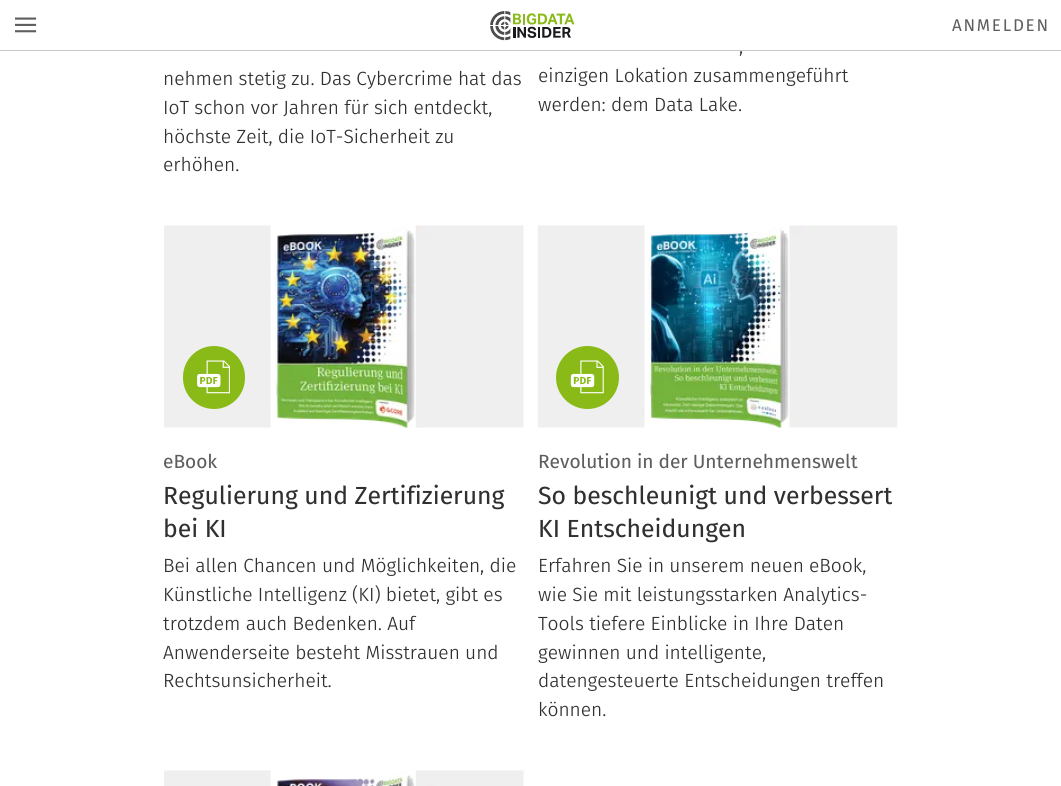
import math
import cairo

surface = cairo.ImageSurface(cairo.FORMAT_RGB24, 1061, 786)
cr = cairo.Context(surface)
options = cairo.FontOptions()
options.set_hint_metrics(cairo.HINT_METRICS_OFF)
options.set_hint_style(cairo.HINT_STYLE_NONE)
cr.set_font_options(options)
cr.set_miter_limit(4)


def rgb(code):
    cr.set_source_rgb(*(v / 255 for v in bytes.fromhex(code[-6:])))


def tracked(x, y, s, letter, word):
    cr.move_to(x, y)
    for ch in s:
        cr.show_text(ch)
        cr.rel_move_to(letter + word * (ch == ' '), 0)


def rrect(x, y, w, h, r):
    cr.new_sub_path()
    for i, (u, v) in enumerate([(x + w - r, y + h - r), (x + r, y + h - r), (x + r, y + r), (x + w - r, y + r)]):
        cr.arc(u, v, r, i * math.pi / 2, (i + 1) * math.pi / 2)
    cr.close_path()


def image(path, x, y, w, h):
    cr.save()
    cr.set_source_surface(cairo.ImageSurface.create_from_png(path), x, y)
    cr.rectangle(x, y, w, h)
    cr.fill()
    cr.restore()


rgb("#ffffff")
cr.paint()
rgb("#c6c6c6")
cr.rectangle(0, 50, 1061, 1)
cr.fill()
image("img/1.png", 15, 17, 22, 16)
image("img/2.png", 490, 11, 85, 30)
image("img/3.png", 164, 225, 360, 203)
rgb("#89ba17")
rrect(183, 346, 62, 63, 31)
cr.fill()
image("img/4.png", 197, 360, 33, 34)
image("img/5.png", 537, 225, 361, 203)
cr.arc(587.5, 377.5, 31.5, 0, 2 * math.pi)
cr.fill()
image("img/6.png", 570, 360, 34, 34)
image("img/7.png", 164, 770, 360, 16)
cr.select_font_face("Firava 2")
cr.set_font_size(17)
rgb("#5e5e5e")
tracked(952, 31, "ANMELDEN", 1.75, 0)
cr.select_font_face("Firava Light")
cr.set_font_size(19.1)
rgb("#303030")
for x, y, s in [
    (163, 85, "nehmen stetig zu. Das Cybercrime hat das"),
    (163, 114, "IoT schon vor Jahren für sich entdeckt,"),
    (163, 143, "höchste Zeit, die IoT-Sicherheit zu"),
    (163, 171, "erhöhen."),
    (739, 53, ","),
    (538, 82, "einzigen Lokation zusammengeführt"),
    (538, 111, "werden: dem Data Lake."),
]:
    cr.move_to(x, y)
    cr.show_text(s)
cr.select_font_face("Firava")
rgb("#5e5e5e")
cr.move_to(163, 468)
cr.show_text("eBook")
cr.set_font_size(24.75)
rgb("#303030")
cr.move_to(163, 504)
cr.show_text("Regulierung und Zertifizierung")
cr.move_to(163, 537)
cr.show_text("bei KI")
cr.select_font_face("Firava Light")
cr.set_font_size(19.1)
for x, y, s in [
    (163, 572, "Bei allen Chancen und Möglichkeiten, die"),
    (163, 601, "Künstliche Intelligenz (KI) bietet, gibt es"),
    (163, 630, "trotzdem auch Bedenken. Auf"),
    (163, 659, "Anwenderseite besteht Misstrauen und"),
    (163, 687, "Rechtsunsicherheit."),
]:
    cr.move_to(x, y)
    cr.show_text(s)
cr.select_font_face("Firava")
rgb("#5e5e5e")
cr.move_to(538, 468)
cr.show_text("Revolution in der Unternehmenswelt")
cr.set_font_size(24.75)
rgb("#303030")
cr.move_to(538, 504)
cr.show_text("So beschleunigt und verbessert")
cr.move_to(538, 537)
cr.show_text("KI Entscheidungen")
cr.select_font_face("Firava Light")
cr.set_font_size(19.1)
for x, y, s in [
    (538, 572, "Erfahren Sie in unserem neuen eBook,"),
    (538, 601, "wie Sie mit leistungsstarken Analytics-"),
    (538, 630, "Tools tiefere Einblicke in Ihre Daten"),
    (538, 659, "gewinnen und intelligente,"),
    (538, 687, "datengesteuerte Entscheidungen treffen"),
    (538, 716, "können."),
]:
    cr.move_to(x, y)
    cr.show_text(s)
surface.write_to_png("page.png")
